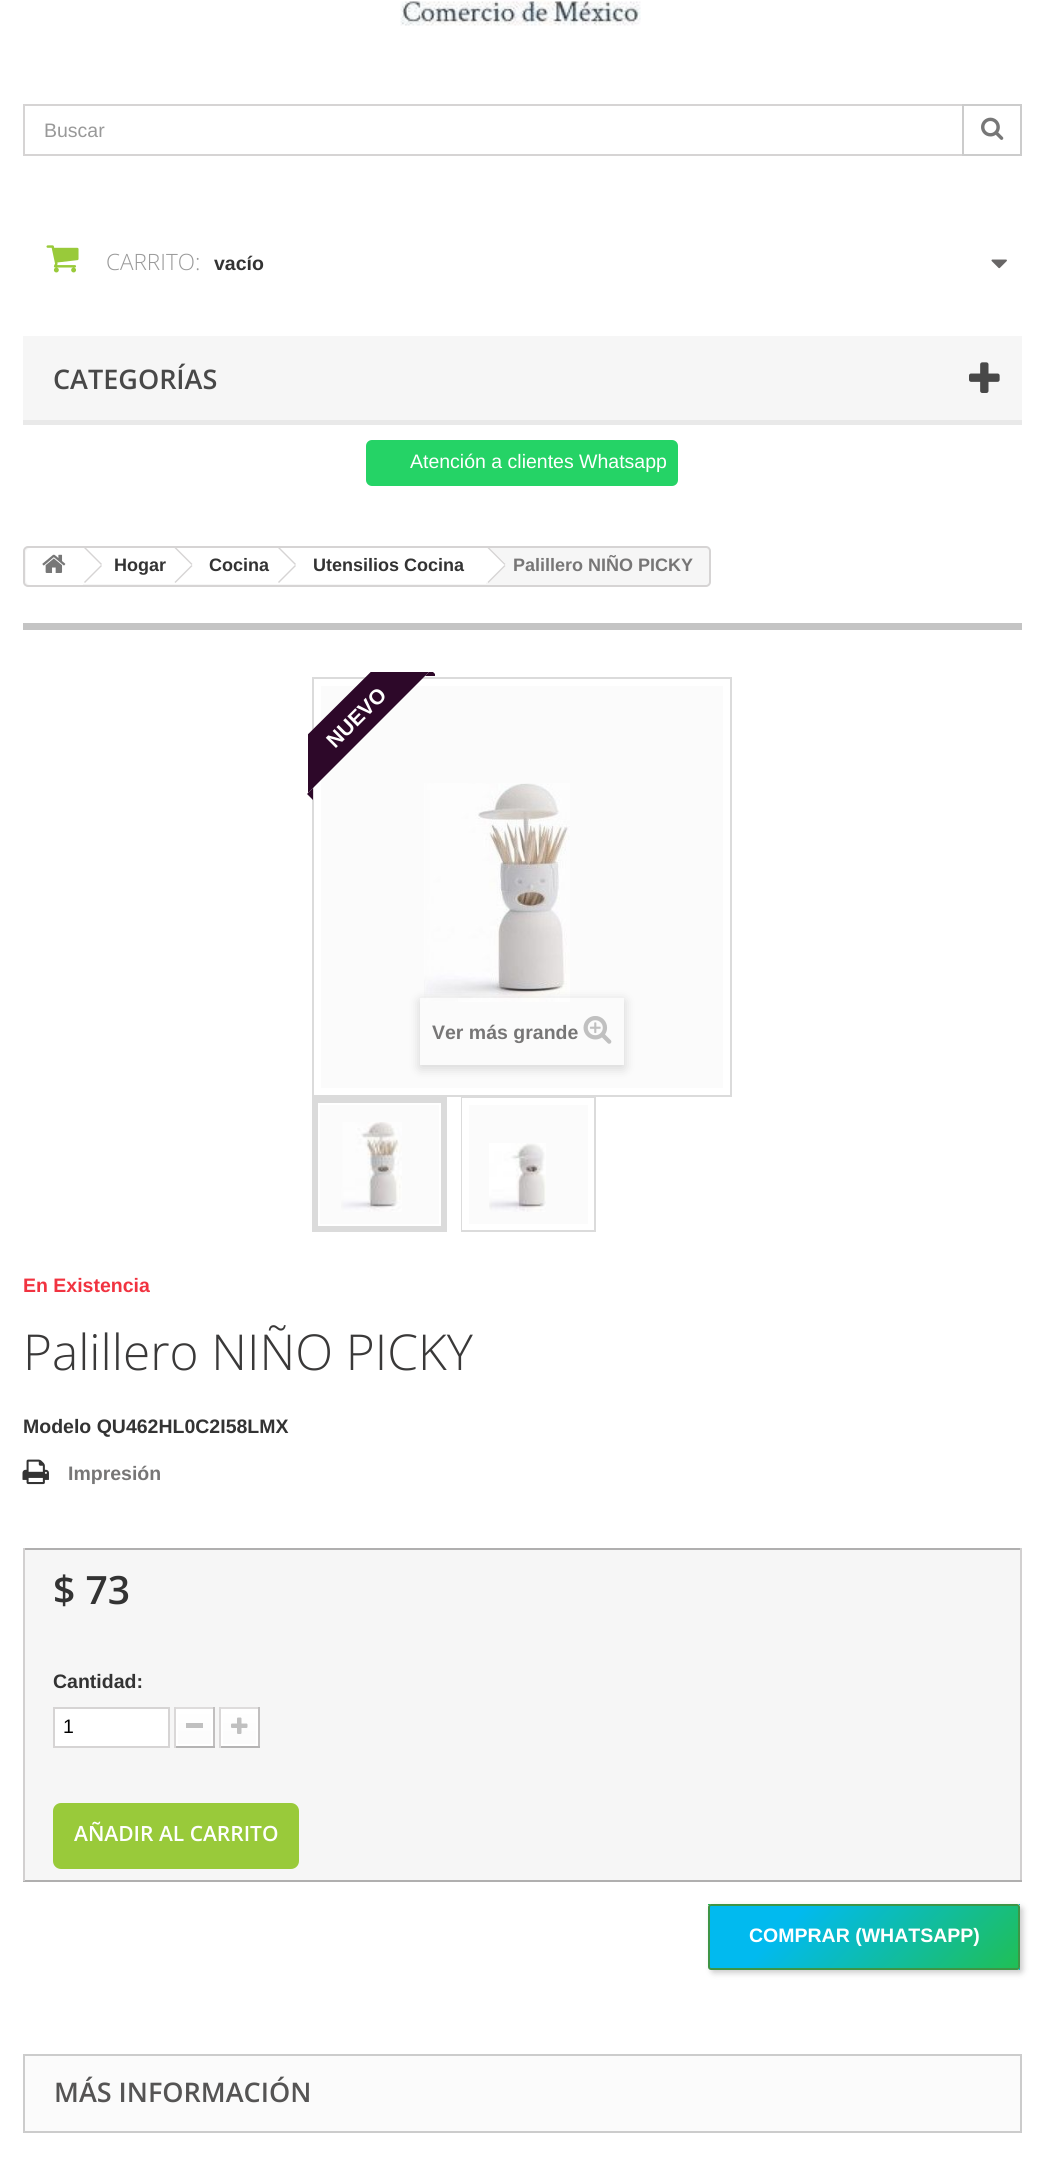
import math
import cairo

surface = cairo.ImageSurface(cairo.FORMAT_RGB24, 1044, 2175)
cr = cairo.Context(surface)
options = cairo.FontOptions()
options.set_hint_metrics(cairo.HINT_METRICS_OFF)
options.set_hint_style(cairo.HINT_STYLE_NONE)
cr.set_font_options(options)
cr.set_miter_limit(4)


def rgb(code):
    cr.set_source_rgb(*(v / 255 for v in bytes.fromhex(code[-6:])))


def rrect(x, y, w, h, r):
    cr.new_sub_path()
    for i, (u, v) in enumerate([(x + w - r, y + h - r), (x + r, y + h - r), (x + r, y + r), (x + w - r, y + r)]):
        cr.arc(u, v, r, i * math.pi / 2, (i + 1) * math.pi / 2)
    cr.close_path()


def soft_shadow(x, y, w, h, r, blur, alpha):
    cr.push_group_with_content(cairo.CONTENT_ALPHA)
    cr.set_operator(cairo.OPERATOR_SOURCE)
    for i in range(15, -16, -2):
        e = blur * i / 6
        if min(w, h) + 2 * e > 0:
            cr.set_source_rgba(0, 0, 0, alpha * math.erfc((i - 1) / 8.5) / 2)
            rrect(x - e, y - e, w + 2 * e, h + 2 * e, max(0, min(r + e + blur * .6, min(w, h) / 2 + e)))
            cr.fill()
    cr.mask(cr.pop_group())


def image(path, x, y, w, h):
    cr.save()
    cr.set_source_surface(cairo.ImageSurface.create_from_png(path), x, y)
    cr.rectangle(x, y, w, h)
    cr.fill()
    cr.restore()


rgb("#ffffff")
cr.paint()
image("img/1.png", 400, 0, 241, 26)
cr.rectangle(24, 105, 997, 50)
rgb("#d6d4d4")
cr.stroke()
cr.rectangle(963, 105, 58, 50)
rgb("#cccccc")
cr.stroke()
image("img/2.png", 981, 117, 23, 23)
image("img/3.png", 46, 245, 33, 28)
image("img/4.png", 991, 259, 16, 10)
rgb("#f6f6f6")
cr.rectangle(23, 336, 999, 84)
cr.fill()
rgb("#e9e9e9")
cr.rectangle(23, 420, 999, 5)
cr.fill()
image("img/5.png", 969, 362, 31, 31)
rgb("#25d366")
rrect(366, 440, 312, 46, 6)
cr.fill()
rgb("#f6f6f6")
rrect(24, 547, 686, 39, 4)
cr.fill_preserve()
rgb("#d6d4d4")
cr.stroke()
rgb("#ffffff")
cr.new_path()
cr.move_to(31, 548)
cr.line_to(83, 548)
cr.line_to(83, 585)
cr.line_to(31, 585)
cr.curve_to(28, 585, 26, 583, 26, 580)
cr.line_to(26, 553)
cr.curve_to(26, 550, 28, 548, 31, 548)
cr.close_path()
cr.fill()
image("img/6.png", 42, 554, 24, 19)
cr.rectangle(83, 548, 93, 36)
cr.fill()
rgb("#d6d4d4")
cr.new_path()
cr.move_to(86, 548)
cr.line_to(102, 564)
cr.line_to(101, 565)
cr.line_to(84, 548)
cr.close_path()
cr.move_to(101, 565)
cr.line_to(102, 566)
cr.line_to(85, 583)
cr.line_to(84, 582)
cr.close_path()
cr.fill()
rgb("#ffffff")
cr.new_path()
cr.move_to(191.5, 548)
cr.line_to(187.5, 548)
cr.line_to(172.5, 562.5)
cr.curve_to(171.5, 564, 171.5, 566, 172.5, 567)
cr.line_to(187.5, 582)
cr.curve_to(188.5, 583, 190.5, 583, 191.5, 582)
cr.line_to(206.5, 567)
cr.curve_to(207.5, 566, 207.5, 564, 206.5, 562.5)
cr.close_path()
cr.fill()
cr.rectangle(176, 548, 103, 36)
cr.fill()
rgb("#d6d4d4")
cr.new_path()
cr.move_to(176.5, 548)
cr.line_to(192.5, 564)
cr.line_to(191.5, 565)
cr.line_to(174.5, 548)
cr.close_path()
cr.move_to(191.5, 565)
cr.line_to(192.5, 566)
cr.line_to(175.5, 583)
cr.line_to(174.5, 582)
cr.close_path()
cr.fill()
rgb("#ffffff")
cr.new_path()
cr.move_to(295, 548)
cr.line_to(291, 548)
cr.line_to(276, 562.5)
cr.curve_to(275, 564, 275, 566, 276, 567)
cr.line_to(291, 582)
cr.curve_to(292, 583, 294, 583, 295, 582)
cr.line_to(310, 567)
cr.curve_to(311, 566, 311, 564, 310, 562.5)
cr.close_path()
cr.fill()
cr.rectangle(279, 548, 207, 36)
cr.fill()
rgb("#d6d4d4")
cr.new_path()
cr.move_to(280, 548)
cr.line_to(296, 564)
cr.line_to(295, 565)
cr.line_to(278, 548)
cr.close_path()
cr.move_to(295, 565)
cr.line_to(296, 566)
cr.line_to(279, 583)
cr.line_to(278, 582)
cr.close_path()
cr.fill()
rgb("#ffffff")
cr.new_path()
cr.move_to(489.5, 548)
cr.line_to(485.5, 548)
cr.line_to(470.5, 562.5)
cr.curve_to(469.5, 564, 469.5, 566, 470.5, 567)
cr.line_to(485.5, 582)
cr.curve_to(486.5, 583, 488.5, 583, 489.5, 582)
cr.line_to(504.5, 567)
cr.curve_to(505.5, 566, 505.5, 564, 504.5, 562.5)
cr.close_path()
cr.fill()
rgb("#d6d4d4")
cr.new_path()
cr.move_to(489.5, 548)
cr.line_to(505.5, 564)
cr.line_to(504.5, 565)
cr.line_to(487.5, 548)
cr.close_path()
cr.move_to(504.5, 565)
cr.line_to(505.5, 566)
cr.line_to(488.5, 583)
cr.line_to(487.5, 582)
cr.close_path()
cr.fill()
rgb("#c4c4c4")
cr.rectangle(23, 623, 999, 7)
cr.fill()
cr.rectangle(313, 678, 418, 418)
rgb("#dbdbdb")
cr.stroke()
rgb("#fbfbfb")
cr.rectangle(321, 686, 402, 402)
cr.fill()
image("img/7.png", 424, 783, 146, 219)
cr.save()
cr.rectangle(308, 672, 127, 128)
cr.clip()
rgb("#2d0829")
cr.new_path()
cr.move_to(272, 770)
cr.line_to(410, 633)
cr.line_to(439, 662)
cr.line_to(301, 800)
cr.close_path()
cr.fill()
cr.new_path()
cr.move_to(437, 676)
cr.line_to(425, 676)
cr.line_to(431, 670)
cr.close_path()
cr.fill()
cr.restore()
rgb("#2d0829")
cr.new_path()
cr.move_to(313, 788)
cr.line_to(313, 800)
cr.line_to(307, 794)
cr.close_path()
cr.fill()
cr.save()
cr.set_fill_rule(cairo.FILL_RULE_EVEN_ODD)
cr.new_path()
cr.move_to(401, 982)
cr.line_to(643, 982)
cr.line_to(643, 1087)
cr.line_to(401, 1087)
cr.close_path()
cr.move_to(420, 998)
cr.line_to(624, 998)
cr.line_to(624, 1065)
cr.line_to(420, 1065)
cr.close_path()
cr.clip()
rgb("#000000")
soft_shadow(420, 1001, 204, 67, 0, 6, 0.16)
cr.restore()
cr.set_source_rgba(1, 1, 1, 0.5)
cr.rectangle(458, 998, 81, 4)
cr.fill()
image("img/8.png", 583, 1016, 29, 28)
cr.rectangle(313, 1098, 133, 133)
rgb("#dbdbdb")
cr.stroke()
rgb("#fbfbfb")
cr.rectangle(320, 1105, 119, 119)
cr.fill()
cr.rectangle(316.5, 1100.5, 127, 127)
rgb("#dbdbdb")
cr.set_line_width(5)
cr.stroke()
cr.rectangle(319, 1104, 121, 121)
rgb("#ffffff")
cr.set_line_width(2)
cr.stroke()
image("img/9.png", 341, 1122, 61, 90)
cr.rectangle(462, 1098, 133, 133)
rgb("#dbdbdb")
cr.stroke()
rgb("#fbfbfb")
cr.rectangle(469, 1105, 119, 119)
cr.fill()
cr.rectangle(464.5, 1100.5, 127, 127)
rgb("#ffffff")
cr.set_line_width(5)
cr.stroke()
image("img/10.png", 489, 1143, 57, 69)
image("img/11.png", 22, 1459, 27, 26)
for x, y, w, h, color in [
    (25, 1550, 995, 330, "#f6f6f6"),
    (23, 1548, 999, 2, "#b0afaf"),
    (1020, 1548, 2, 333, "#d2d0d0"),
    (23, 1880, 999, 2, "#b0afaf"),
    (23, 1548, 2, 333, "#d2d0d0"),
]:
    rgb(color)
    cr.rectangle(x, y, w, h)
    cr.fill()
rgb("#ffffff")
cr.rectangle(54, 1708, 115, 39)
cr.fill_preserve()
rgb("#d6d4d4")
cr.set_line_width(2)
cr.stroke()
for x, y, w, h, color in [
    (174, 1707, 41, 2, "#dedcdc"),
    (213, 1707, 2, 41, "#c1bfbf"),
    (174, 1746, 41, 2, "#b5b4b4"),
    (174, 1707, 2, 41, "#dad8d8"),
]:
    rgb(color)
    cr.rectangle(x, y, w, h)
    cr.fill()
gradient = cairo.LinearGradient(194, 1710, 194, 1745)
gradient.add_color_stop_rgba(0, 1, 1, 1, 1)
gradient.add_color_stop_rgba(1, 0.984, 0.984, 0.984, 1)
cr.set_source(gradient)
cr.rectangle(178, 1711, 33, 33)
cr.fill()
cr.rectangle(177, 1710, 35, 35)
rgb("#ffffff")
cr.stroke()
for x, y, w, h, color in [
    (186, 1723, 17, 5, "#c0c0c0"),
    (219, 1707, 41, 2, "#dedcdc"),
    (258, 1707, 2, 41, "#c1bfbf"),
    (219, 1746, 41, 2, "#b5b4b4"),
    (219, 1707, 2, 41, "#dad8d8"),
]:
    rgb(color)
    cr.rectangle(x, y, w, h)
    cr.fill()
gradient = cairo.LinearGradient(239, 1710, 239, 1745)
gradient.add_color_stop_rgba(0, 1, 1, 1, 1)
gradient.add_color_stop_rgba(1, 0.984, 0.984, 0.984, 1)
cr.set_source(gradient)
cr.rectangle(223, 1711, 33, 33)
cr.fill()
cr.rectangle(222, 1710, 35, 35)
rgb("#ffffff")
cr.stroke()
image("img/12.png", 231, 1717, 17, 17)
rgb("#99ca3a")
rrect(54, 1804, 244, 64, 7)
cr.fill_preserve()
cr.stroke()
rgb("#000000")
soft_shadow(711, 1907, 312, 66, 3, 3, 0.2)
gradient = cairo.LinearGradient(648, 1967, 462, 1781)
gradient.add_color_stop_rgba(0, 0.125, 0.749, 0.333, 1)
gradient.add_color_stop_rgba(0.74, 0.004, 0.729, 0.937, 1)
cr.set_source(gradient)
cr.rectangle(708, 1904, 2, 1)
cr.fill()
gradient = cairo.LinearGradient(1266, 1967, 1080, 1781)
gradient.add_color_stop_rgba(0, 0.125, 0.749, 0.333, 1)
gradient.add_color_stop_rgba(0.74, 0.004, 0.729, 0.937, 1)
cr.set_source(gradient)
cr.rectangle(1019, 1904, 1, 1)
cr.fill()
gradient = cairo.LinearGradient(957, 2030, 771, 1844)
gradient.add_color_stop_rgba(0, 0.125, 0.749, 0.333, 1)
gradient.add_color_stop_rgba(0.74, 0.004, 0.729, 0.937, 1)
cr.set_source(gradient)
cr.rectangle(710, 1906, 308, 62)
cr.fill()
gradient = cairo.LinearGradient(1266, 2093, 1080, 1907)
gradient.add_color_stop_rgba(0, 0.125, 0.749, 0.333, 1)
gradient.add_color_stop_rgba(0.74, 0.004, 0.729, 0.937, 1)
cr.set_source(gradient)
cr.rectangle(1019, 1968, 1, 2)
cr.fill()
rrect(709, 1905, 310, 64, 2)
rgb("#3e9546")
cr.stroke()
rgb("#fbfbfb")
cr.rectangle(24, 2055, 997, 77)
cr.fill_preserve()
rgb("#cccccc")
cr.stroke()
cr.select_font_face("Liberation Sans")
cr.set_font_size(19.5)
rgb("#999999")
cr.move_to(44, 137)
cr.show_text("Buscar")
cr.select_font_face("Open Sans Light")
cr.set_font_size(22.5)
cr.move_to(106, 270)
cr.show_text("CARRITO:")
cr.select_font_face("Liberation Sans", cairo.FONT_SLANT_NORMAL, cairo.FONT_WEIGHT_BOLD)
cr.set_font_size(19.5)
rgb("#333333")
cr.move_to(214, 270)
cr.show_text("vacío")
cr.select_font_face("Open Sans SemiBold")
cr.set_font_size(27)
rgb("#484848")
cr.move_to(53, 389)
cr.show_text("CATEGORÍAS")
cr.select_font_face("Liberation Sans")
cr.set_font_size(19.5)
rgb("#ffffff")
cr.move_to(410, 468)
cr.show_text("Atención a clientes Whatsapp")
cr.select_font_face("Liberation Sans", cairo.FONT_SLANT_NORMAL, cairo.FONT_WEIGHT_BOLD)
cr.set_font_size(18)
rgb("#333333")
for x, y, s in [
    (114, 571, "Hogar"),
    (209, 571, "Cocina"),
    (313, 571, "Utensilios Cocina"),
]:
    cr.move_to(x, y)
    cr.show_text(s)
rgb("#777676")
cr.move_to(513, 571)
cr.show_text("Palillero NIÑO PICKY")
cr.set_font_size(21)
rgb("#ffffff")
cr.save()
cr.translate(335, 749)
cr.rotate(-45 * math.pi / 180)
cr.move_to(0, 0)
cr.show_text("NUEVO")
cr.restore()
cr.set_font_size(19.5)
rgb("#777676")
cr.move_to(432, 1039)
cr.show_text("Ver más grande")
rgb("#f13340")
cr.move_to(23, 1292)
cr.show_text("En Existencia")
cr.select_font_face("Open Sans Light")
cr.set_font_size(49.5)
rgb("#3a3939")
cr.move_to(23, 1370)
cr.show_text("Palillero NIÑO PICKY")
cr.select_font_face("Liberation Sans", cairo.FONT_SLANT_NORMAL, cairo.FONT_WEIGHT_BOLD)
cr.set_font_size(19.5)
rgb("#333333")
cr.move_to(23, 1433)
cr.show_text("Modelo QU462HL0C2I58LMX")
rgb("#777676")
cr.move_to(68, 1480)
cr.show_text("Impresión")
cr.select_font_face("Open Sans SemiBold")
cr.set_font_size(39)
rgb("#333333")
cr.move_to(53, 1604)
cr.show_text("$ 73")
cr.select_font_face("Liberation Sans", cairo.FONT_SLANT_NORMAL, cairo.FONT_WEIGHT_BOLD)
cr.set_font_size(19.5)
cr.move_to(53, 1688)
cr.show_text("Cantidad:")
cr.select_font_face("Liberation Sans")
rgb("#000000")
cr.move_to(63, 1733)
cr.show_text("1")
cr.select_font_face("Open Sans SemiBold")
cr.set_font_size(21)
rgb("#ffffff")
cr.move_to(74, 1841)
cr.show_text("AÑADIR AL CARRITO")
cr.select_font_face("Liberation Sans", cairo.FONT_SLANT_NORMAL, cairo.FONT_WEIGHT_BOLD)
cr.set_font_size(19.5)
cr.move_to(749, 1942)
cr.show_text("COMPRAR (WHATSAPP)")
cr.select_font_face("Open Sans SemiBold")
cr.set_font_size(27)
rgb("#555454")
cr.move_to(54, 2102)
cr.show_text("MÁS INFORMACIÓN")
surface.write_to_png("page.png")
